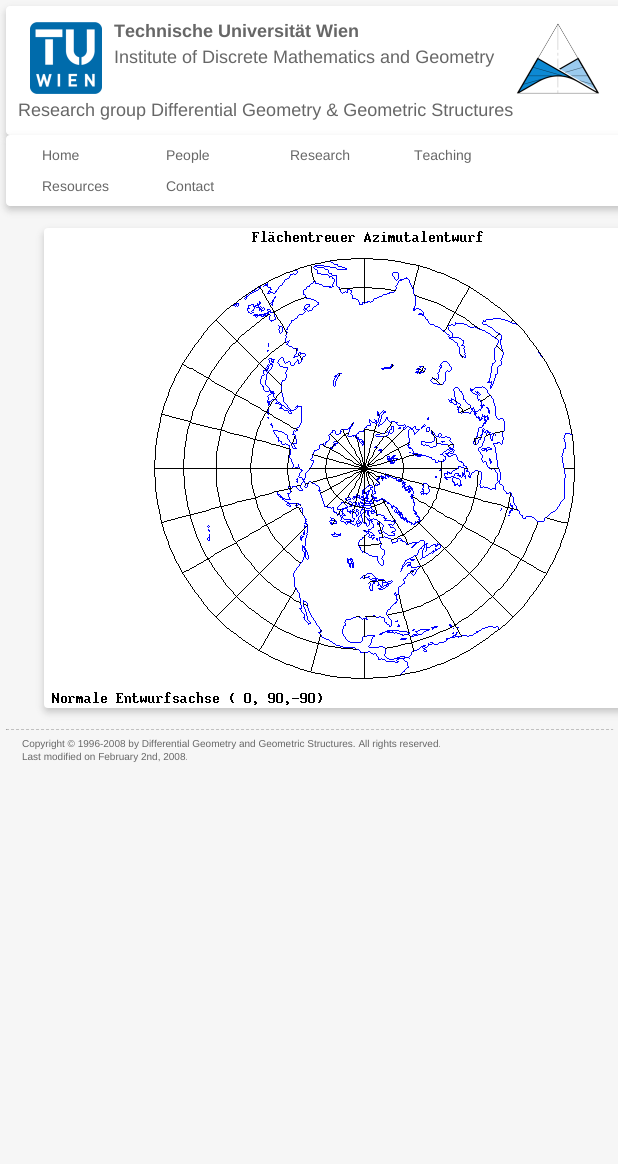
import math
import cairo

surface = cairo.ImageSurface(cairo.FORMAT_RGB24, 618, 1164)
cr = cairo.Context(surface)
options = cairo.FontOptions()
options.set_hint_metrics(cairo.HINT_METRICS_OFF)
options.set_hint_style(cairo.HINT_STYLE_NONE)
cr.set_font_options(options)
cr.set_miter_limit(4)


def rgb(code):
    cr.set_source_rgb(*(v / 255 for v in bytes.fromhex(code[-6:])))


def rrect(x, y, w, h, r):
    cr.new_sub_path()
    for i, (u, v) in enumerate([(x + w - r, y + h - r), (x + r, y + h - r), (x + r, y + r), (x + w - r, y + r)]):
        cr.arc(u, v, r, i * math.pi / 2, (i + 1) * math.pi / 2)
    cr.close_path()


def soft_shadow(x, y, w, h, r, blur, alpha):
    cr.push_group_with_content(cairo.CONTENT_ALPHA)
    cr.set_operator(cairo.OPERATOR_SOURCE)
    for i in range(15, -16, -2):
        e = blur * i / 6
        if min(w, h) + 2 * e > 0:
            cr.set_source_rgba(0, 0, 0, alpha * math.erfc((i - 1) / 8.5) / 2)
            rrect(x - e, y - e, w + 2 * e, h + 2 * e, max(0, min(r + e + blur * .6, min(w, h) / 2 + e)))
            cr.fill()
    cr.mask(cr.pop_group())


def image(path, x, y, w, h):
    cr.save()
    cr.set_source_surface(cairo.ImageSurface.create_from_png(path), x, y)
    cr.rectangle(x, y, w, h)
    cr.fill()
    cr.restore()


rgb("#f6f6f6")
cr.paint()
rgb("#000000")
soft_shadow(6, 10, 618, 129, 4, 4, 0.2)
rgb("#ffffff")
rrect(6, 6, 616, 129, 4)
cr.fill()
image("img/1.png", 30, 22, 72, 72)
image("img/2.png", 516, 23, 84, 71)
rgb("#000000")
soft_shadow(6, 139, 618, 71, 4, 4, 0.2)
rgb("#ffffff")
rrect(6, 135, 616, 71, 4)
cr.fill()
rgb("#000000")
soft_shadow(44, 232, 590, 480, 4, 4, 0.2)
image("img/3.png", 44, 228, 574, 480)
cr.new_path()
cr.move_to(6, 729.5)
cr.line_to(614, 729.5)
rgb("#c0c0c0")
cr.set_line_width(1)
cr.set_dash([3, 2])
cr.stroke()
rgb("#eeeeee")
cr.rectangle(613, 729, 1, 1)
cr.fill()
rgb("#9f9f9f")
cr.rectangle(6, 729, 1, 1)
cr.fill()
cr.select_font_face("Liberation Sans", cairo.FONT_SLANT_NORMAL, cairo.FONT_WEIGHT_BOLD)
cr.set_font_size(18)
rgb("#676767")
cr.move_to(114, 37)
cr.show_text("Technische Universität Wien")
cr.select_font_face("Liberation Sans")
cr.move_to(114, 63)
cr.show_text("Institute of Discrete Mathematics and Geometry")
cr.move_to(18, 116)
cr.show_text("Research group Differential Geometry & Geometric Structures")
cr.set_font_size(14)
for x, y, s in [
    (42, 160, "Home"),
    (166, 160, "People"),
    (290, 160, "Research"),
    (414, 160, "Teaching"),
    (42, 191, "Resources"),
    (166, 191, "Contact"),
]:
    cr.move_to(x, y)
    cr.show_text(s)
cr.set_font_size(10)
cr.move_to(22, 747)
cr.show_text("Copyright © 1996-2008 by Differential Geometry and Geometric Structures. All rights reserved.")
cr.move_to(22, 760)
cr.show_text("Last modified on February 2nd, 2008.")
surface.write_to_png("page.png")
